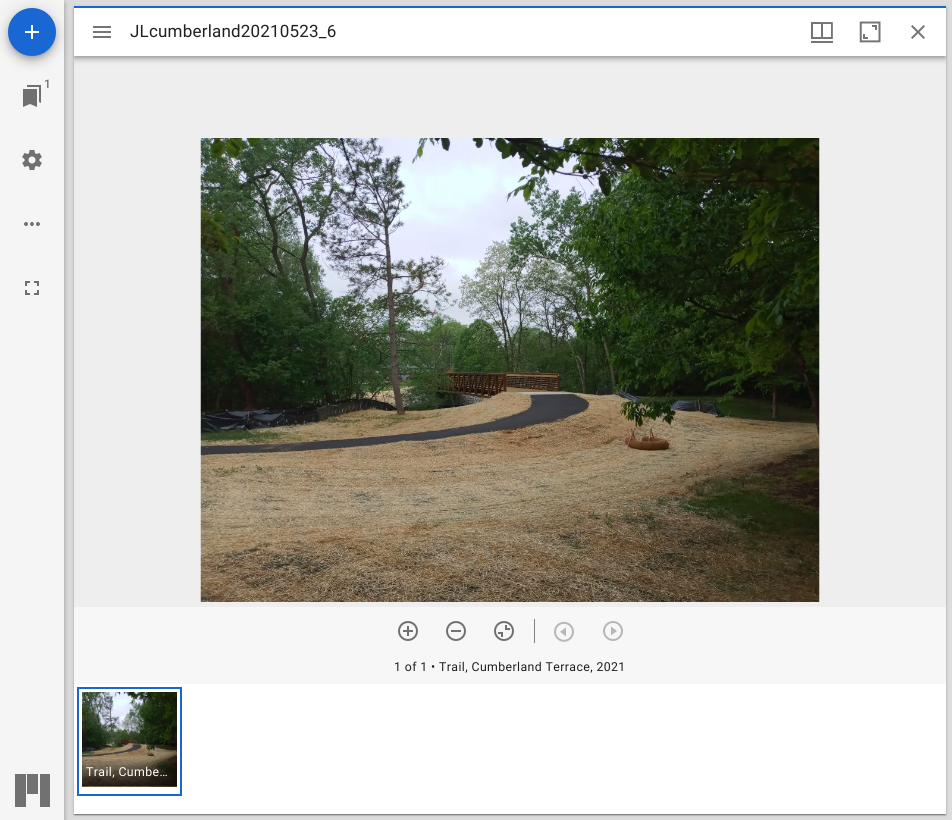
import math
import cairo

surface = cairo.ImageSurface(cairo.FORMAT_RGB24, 952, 820)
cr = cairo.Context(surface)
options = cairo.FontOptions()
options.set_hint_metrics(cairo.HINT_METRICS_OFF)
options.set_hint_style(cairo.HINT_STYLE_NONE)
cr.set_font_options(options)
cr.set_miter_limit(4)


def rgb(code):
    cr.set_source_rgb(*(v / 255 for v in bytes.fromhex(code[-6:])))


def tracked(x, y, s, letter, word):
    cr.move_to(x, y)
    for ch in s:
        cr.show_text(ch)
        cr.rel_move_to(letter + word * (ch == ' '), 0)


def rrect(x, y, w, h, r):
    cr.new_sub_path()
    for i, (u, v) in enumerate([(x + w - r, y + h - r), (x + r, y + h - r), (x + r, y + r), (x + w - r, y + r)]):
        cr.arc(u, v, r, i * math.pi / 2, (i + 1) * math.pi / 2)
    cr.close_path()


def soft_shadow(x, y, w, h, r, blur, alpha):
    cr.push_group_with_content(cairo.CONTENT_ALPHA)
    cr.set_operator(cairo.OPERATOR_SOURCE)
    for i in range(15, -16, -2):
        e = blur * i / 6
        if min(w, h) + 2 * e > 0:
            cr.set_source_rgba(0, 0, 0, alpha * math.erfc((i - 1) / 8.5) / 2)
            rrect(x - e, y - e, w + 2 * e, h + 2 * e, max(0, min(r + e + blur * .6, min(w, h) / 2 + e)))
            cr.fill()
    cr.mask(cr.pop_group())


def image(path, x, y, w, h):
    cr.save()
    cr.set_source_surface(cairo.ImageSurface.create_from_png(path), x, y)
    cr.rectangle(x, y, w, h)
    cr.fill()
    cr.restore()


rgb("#dcdcdc")
cr.paint()
rgb("#000000")
soft_shadow(75, 9, 870, 806, 0, 0.5, 0.2)
soft_shadow(74, 7, 872, 808, 0, 0.5, 0.2)
soft_shadow(74, 7, 872, 808, 0, 1.5, 0.2)
rgb("#eeeeee")
cr.rectangle(74, 56, 872, 551)
cr.fill()
cr.save()
cr.rectangle(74, 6, 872, 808)
cr.clip()
rgb("#000000")
soft_shadow(74, 7, 872, 50, 0, 5, 0.12)
soft_shadow(74, 10, 872, 50, 0, 2.5, 0.14)
cr.restore()
rgb("#000000")
soft_shadow(75, 9, 870, 48, 0, 2, 0.2)
for x, y, w, h, color in [
    (74, 8, 872, 48, "#ffffff"),
    (74, 6, 872, 2, "#1967d2"),
    (74, 607, 872, 77, "#f7f7f7"),
    (74, 684, 872, 130, "#ffffff"),
]:
    rgb(color)
    cr.rectangle(x, y, w, h)
    cr.fill()
cr.rectangle(78, 688, 103, 107)
rgb("#1967d2")
cr.stroke()
rgb("#000000")
soft_shadow(0, 1, 64, 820, 0, 5, 0.12)
soft_shadow(0, 4, 64, 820, 0, 2.5, 0.14)
soft_shadow(1, 3, 62, 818, 0, 2, 0.2)
rgb("#f5f5f5")
cr.rectangle(0, 0, 64, 820)
cr.fill()
rgb("#000000")
soft_shadow(8, 9, 48, 48, 24, 9, 0.12)
soft_shadow(8, 14, 48, 48, 24, 5, 0.14)
soft_shadow(9, 12, 46, 46, 23, 2.5, 0.2)
rgb("#1967d2")
cr.arc(32, 32, 24, 0, 2 * math.pi)
cr.fill()
image("img/1.png", 25, 25, 14, 14)
image("img/2.png", 23, 85, 18, 22)
image("img/3.png", 22, 150, 20, 20)
image("img/4.png", 24, 222, 16, 4)
image("img/5.png", 25, 281, 14, 14)
for x, y, w, h, color in [
    (15, 774, 11, 33, "#717171"),
    (40, 774, 10, 33, "#717171"),
    (27, 774, 11, 20, "#717171"),
]:
    rgb(color)
    cr.rectangle(x, y, w, h)
    cr.fill()
image("img/6.png", 93, 26, 18, 12)
image("img/7.png", 811, 22, 22, 21)
image("img/8.png", 859, 21, 22, 22)
image("img/9.png", 911, 25, 14, 14)
image("img/10.png", 200, 138, 620, 464)
image("img/11.png", 398, 621, 20, 20)
image("img/12.png", 446, 621, 20, 20)
image("img/13.png", 494, 621, 20, 20)
rgb("#808080")
cr.rectangle(534, 619, 1, 24)
cr.fill()
image("img/14.png", 554, 621, 20, 21)
image("img/15.png", 603, 621, 20, 20)
image("img/16.png", 82, 692, 95, 95)
cr.select_font_face("Roboto Medium")
cr.set_font_size(12)
rgb("#717171")
cr.move_to(44, 88)
cr.show_text("1")
cr.select_font_face("Roboto")
cr.set_font_size(17)
rgb("#202020")
tracked(130, 37, "JLcumberland20210523_6", 0.2, 0)
cr.set_font_size(12.3)
tracked(394, 671, "1 of 1 • Trail, Cumberland Terrace, 2021", 0.4, 0)
rgb("#ffffff")
tracked(86, 776, "Trail, Cumbe…", 0.4, 0)
surface.write_to_png("page.png")
